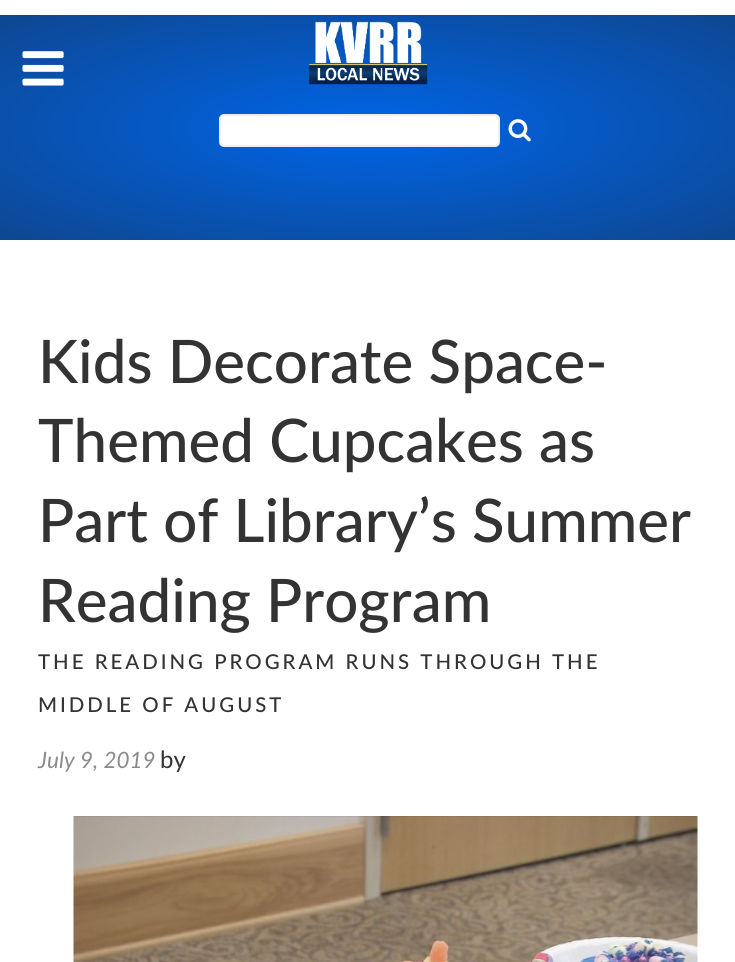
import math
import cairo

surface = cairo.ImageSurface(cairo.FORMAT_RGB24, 735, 962)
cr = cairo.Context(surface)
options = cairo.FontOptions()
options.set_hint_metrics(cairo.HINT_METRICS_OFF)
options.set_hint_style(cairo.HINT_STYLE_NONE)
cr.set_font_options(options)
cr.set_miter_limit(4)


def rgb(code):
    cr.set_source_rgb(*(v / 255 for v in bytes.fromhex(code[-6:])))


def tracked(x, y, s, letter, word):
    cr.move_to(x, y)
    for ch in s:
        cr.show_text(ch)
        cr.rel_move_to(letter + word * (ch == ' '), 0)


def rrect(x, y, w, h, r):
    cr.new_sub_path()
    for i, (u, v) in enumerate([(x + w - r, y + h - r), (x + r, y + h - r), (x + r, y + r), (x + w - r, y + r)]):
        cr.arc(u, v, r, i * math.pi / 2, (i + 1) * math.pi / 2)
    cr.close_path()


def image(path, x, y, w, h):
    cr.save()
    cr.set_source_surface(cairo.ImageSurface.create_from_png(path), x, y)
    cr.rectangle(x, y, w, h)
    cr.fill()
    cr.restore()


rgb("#ffffff")
cr.paint()
gradient = cairo.RadialGradient(0, 0, 0, 0, 0, 1)
gradient.set_matrix(cairo.Matrix(1 / 520, 0, 0, 1 / 159, -1 * 368 / 520, -1 * 128 / 159))
gradient.add_color_stop_rgba(0, 0, 0.396, 0.906, 1)
gradient.add_color_stop_rgba(1, 0.055, 0.278, 0.569, 1)
cr.set_source(gradient)
cr.rectangle(0, 15, 735, 225)
cr.fill()
image("img/1.png", 22, 51, 42, 35)
image("img/2.png", 308, 21, 120, 64)
rgb("#ffffff")
rrect(220, 115, 279, 31, 4)
cr.fill_preserve()
rgb("#eeeeee")
cr.stroke()
image("img/3.png", 508, 119, 23, 23)
image("img/4.png", 73, 816, 625, 146)
cr.select_font_face("Lato Medium")
cr.set_font_size(60)
rgb("#333333")
for x, y, s in [
    (38, 383, "Kids Decorate Space-"),
    (38, 462, "Themed Cupcakes as"),
    (38, 542, "Part of Library’s Summer"),
    (38, 622, "Reading Program"),
]:
    cr.move_to(x, y)
    cr.show_text(s)
cr.set_font_size(20.4)
tracked(38, 669, "THE READING PROGRAM RUNS THROUGH THE", 3, 0)
tracked(38, 712, "MIDDLE OF AUGUST", 3, 0)
cr.select_font_face("Lato", cairo.FONT_SLANT_ITALIC)
cr.set_font_size(22.5)
rgb("#8b8b8b")
cr.move_to(38, 768)
cr.show_text("July 9, 2019")
cr.select_font_face("Lato")
cr.set_font_size(24)
rgb("#333333")
cr.move_to(160, 768)
cr.show_text("by")
surface.write_to_png("page.png")
